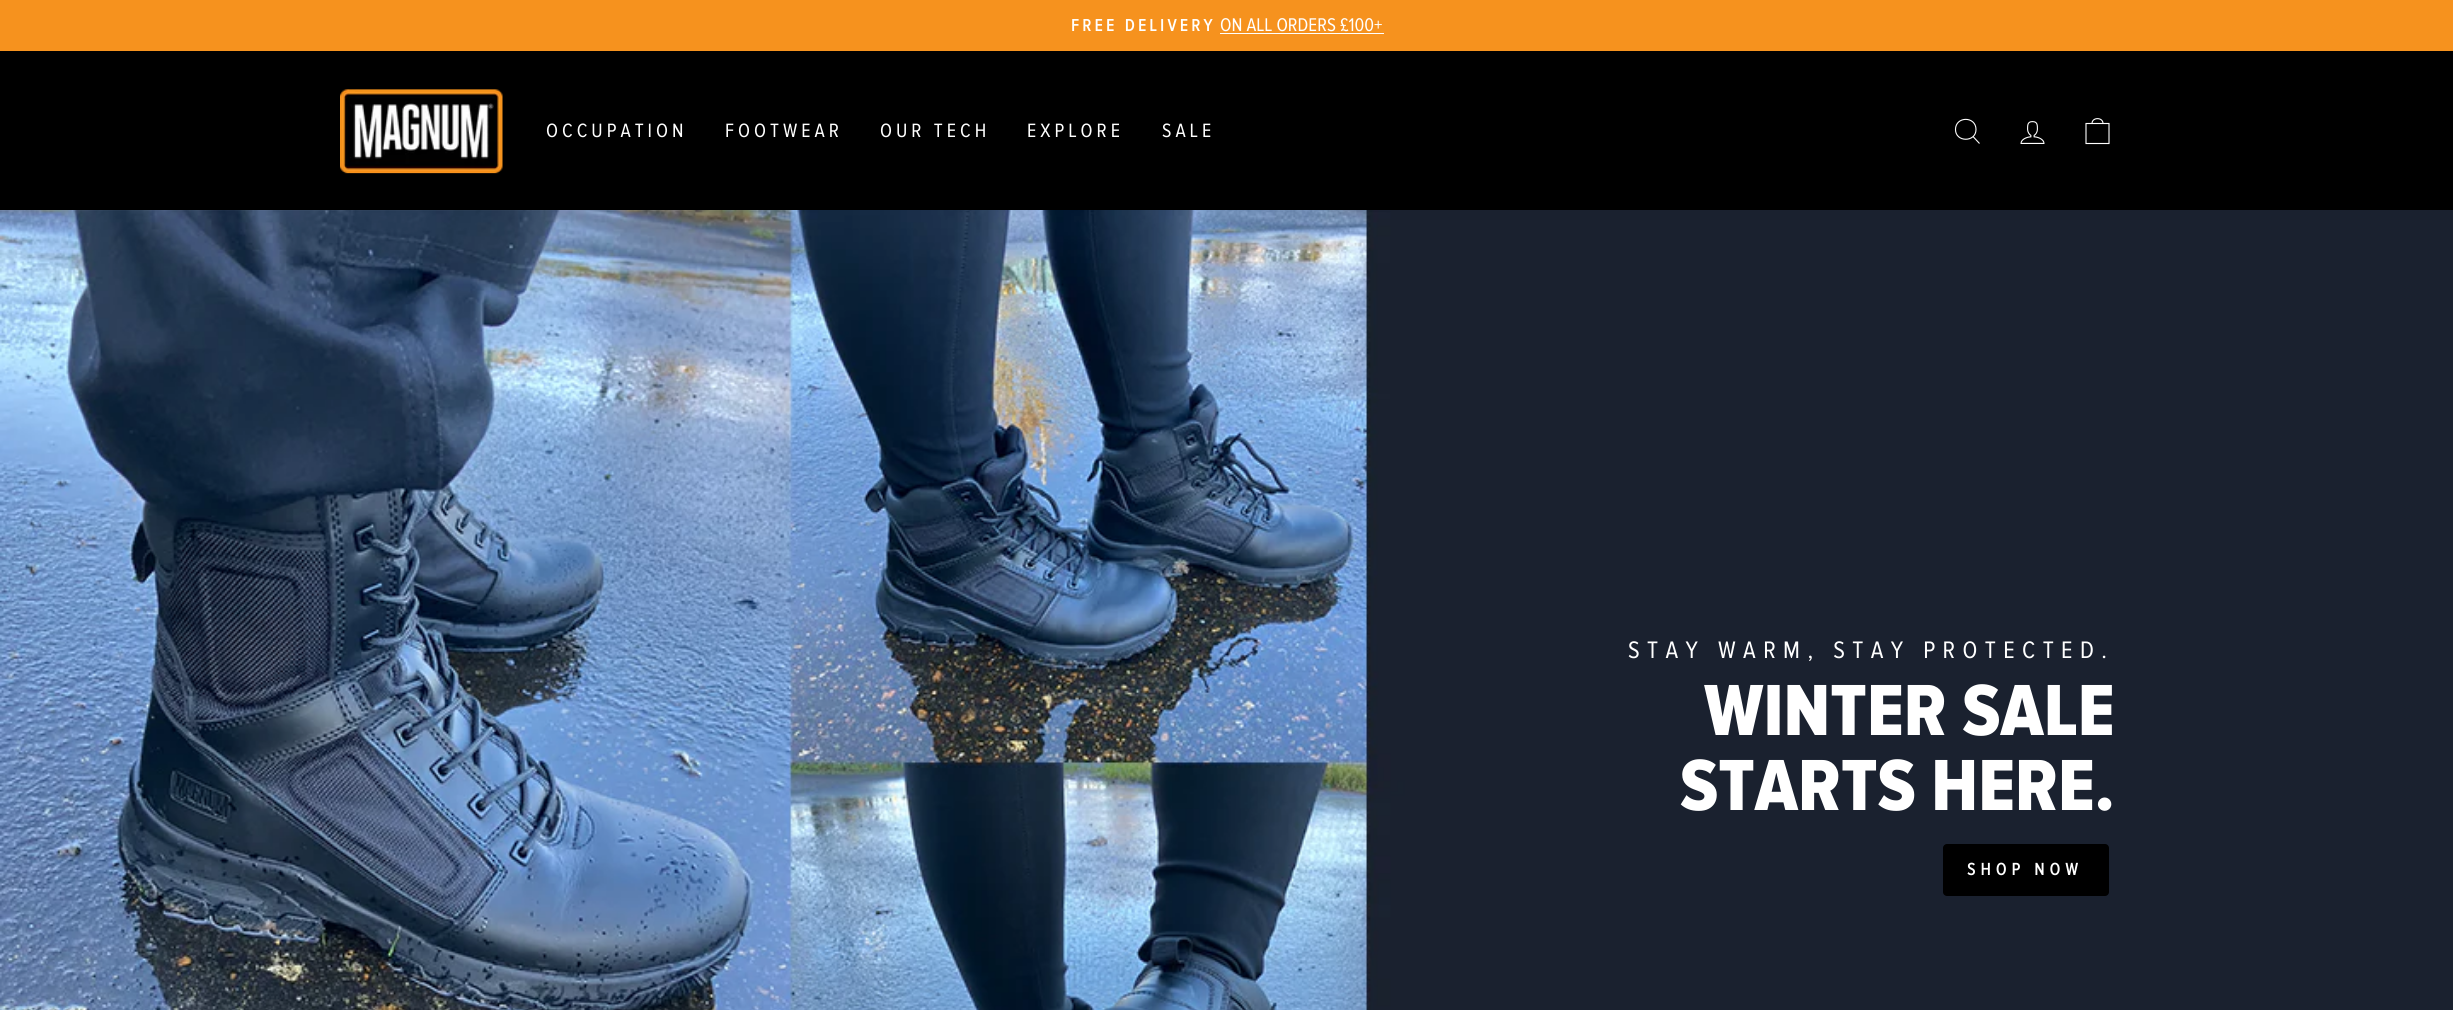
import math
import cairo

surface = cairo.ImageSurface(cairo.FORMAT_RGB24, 2453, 1010)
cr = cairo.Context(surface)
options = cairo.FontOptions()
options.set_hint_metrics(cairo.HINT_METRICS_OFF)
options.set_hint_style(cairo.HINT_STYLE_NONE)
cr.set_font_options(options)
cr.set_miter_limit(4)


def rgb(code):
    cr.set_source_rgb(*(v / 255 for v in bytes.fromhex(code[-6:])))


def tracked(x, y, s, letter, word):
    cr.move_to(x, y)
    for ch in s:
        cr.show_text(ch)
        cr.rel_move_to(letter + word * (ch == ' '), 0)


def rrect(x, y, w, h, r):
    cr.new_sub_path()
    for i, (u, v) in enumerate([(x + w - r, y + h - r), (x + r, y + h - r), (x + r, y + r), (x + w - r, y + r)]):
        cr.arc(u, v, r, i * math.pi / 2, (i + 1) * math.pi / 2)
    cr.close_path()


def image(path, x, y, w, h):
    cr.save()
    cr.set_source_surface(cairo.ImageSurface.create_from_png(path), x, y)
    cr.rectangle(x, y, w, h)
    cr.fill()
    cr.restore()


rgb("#ffffff")
cr.paint()
for x, y, w, h, color in [
    (0, 0, 2453, 51, "#f6921e"),
    (1220, 33, 164, 1, "#ffffff"),
    (0, 51, 2453, 159, "#000000"),
]:
    rgb(color)
    cr.rectangle(x, y, w, h)
    cr.fill()
image("img/1.png", 340, 89, 163, 85)
cr.new_path()
cr.move_to(1976, 129.5)
cr.curve_to(1976, 142.5, 1955.5, 142.5, 1955.5, 129.5)
cr.curve_to(1955.5, 116, 1976, 116, 1976, 129.5)
cr.close_path()
cr.move_to(1979.5, 143.5)
cr.line_to(1973, 136.5)
rgb("#ffffff")
cr.set_line_width(1.1)
cr.stroke()
image("img/2.png", 2020, 121, 25, 23)
cr.new_path()
cr.move_to(2086, 123.5)
cr.line_to(2109, 123.5)
cr.line_to(2109, 143.5)
cr.line_to(2086, 143.5)
cr.close_path()
cr.move_to(2092, 123.5)
cr.curve_to(2092, 117, 2103, 117, 2103, 123.5)
cr.stroke()
image("img/3.png", 0, 210, 2453, 800)
rgb("#000000")
rrect(1943, 844, 166, 52, 4)
cr.fill()
cr.select_font_face("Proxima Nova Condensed", cairo.FONT_SLANT_NORMAL, cairo.FONT_WEIGHT_BOLD)
cr.set_font_size(17.25)
rgb("#ffffff")
tracked(1071, 31, "FREE DELIVERY", 3.5, 0)
cr.select_font_face("Proxima Nova Condensed")
cr.set_font_size(19.1)
cr.move_to(1220, 31)
cr.show_text("ON ALL ORDERS £100+")
cr.set_font_size(20)
for x, y, s in [
    (546, 137, "OCCUPATION"),
    (725, 137, "FOOTWEAR"),
    (880, 137, "OUR TECH"),
    (1027, 137, "EXPLORE"),
    (1162, 137, "SALE"),
]:
    tracked(x, y, s, 4, 0)
cr.set_font_size(24.75)
tracked(1628, 658, "STAY WARM, STAY PROTECTED.", 7.4, 0)
cr.select_font_face("Proxima Nova Condensed ExtraBold")
cr.set_font_size(75)
cr.move_to(1704, 735)
cr.show_text("WINTER SALE")
cr.move_to(1680, 810)
cr.show_text("STARTS HERE.")
cr.select_font_face("Proxima Nova Condensed", cairo.FONT_SLANT_NORMAL, cairo.FONT_WEIGHT_BOLD)
cr.set_font_size(17.5)
tracked(1967, 875, "SHOP NOW", 5.25, 0)
surface.write_to_png("page.png")
